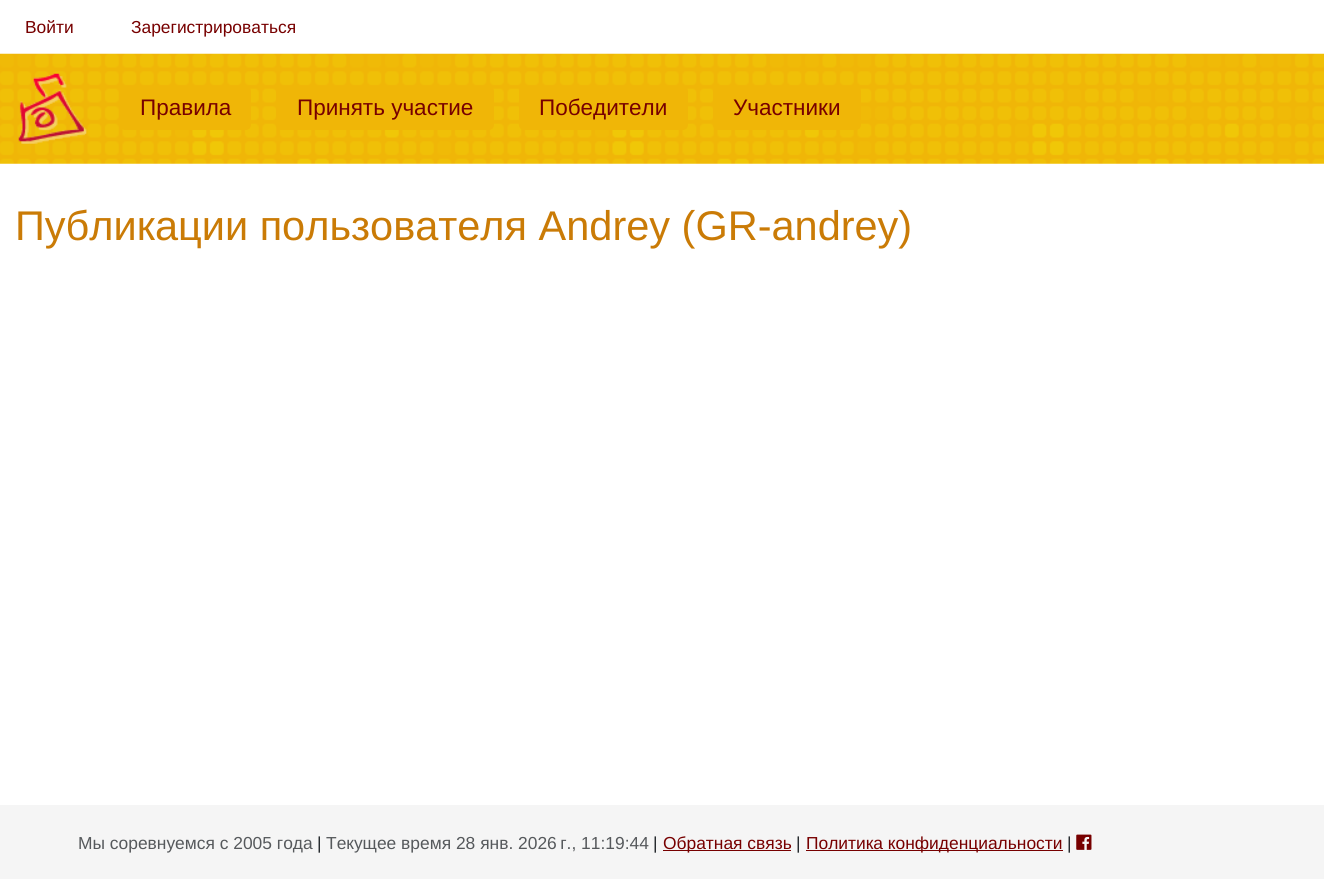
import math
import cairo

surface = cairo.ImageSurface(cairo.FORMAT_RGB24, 1324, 879)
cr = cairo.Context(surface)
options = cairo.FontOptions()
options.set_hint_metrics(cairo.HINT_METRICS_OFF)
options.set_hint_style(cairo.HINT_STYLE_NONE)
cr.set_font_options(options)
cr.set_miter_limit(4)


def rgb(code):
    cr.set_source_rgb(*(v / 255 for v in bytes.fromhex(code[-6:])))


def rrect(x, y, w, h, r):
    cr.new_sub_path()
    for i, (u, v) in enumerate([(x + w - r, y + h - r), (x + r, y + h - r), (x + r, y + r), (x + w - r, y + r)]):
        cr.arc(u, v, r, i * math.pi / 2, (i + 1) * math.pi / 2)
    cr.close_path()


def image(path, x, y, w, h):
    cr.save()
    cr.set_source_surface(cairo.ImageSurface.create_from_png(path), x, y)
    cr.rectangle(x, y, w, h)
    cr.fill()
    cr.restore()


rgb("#ffffff")
cr.paint()
image("img/1.png", 0, 53, 1324, 111)
image("img/2.png", 18, 73, 69, 71)
rgb("#f0b607")
rrect(120, 86, 131, 44, 5)
cr.fill()
rrect(276, 86, 218, 44, 5)
cr.fill()
rrect(519, 86, 169, 44, 5)
cr.fill()
rrect(713, 86, 148, 44, 5)
cr.fill()
for x, y, w, h, color in [
    (0, 805, 1324, 74, "#f5f5f5"),
    (663, 850, 128, 1, "#770000"),
    (806, 850, 257, 1, "#770000"),
]:
    rgb(color)
    cr.rectangle(x, y, w, h)
    cr.fill()
image("img/3.png", 1076, 834, 16, 16)
cr.select_font_face("Liberation Sans")
cr.set_font_size(17.4)
cr.move_to(25, 33)
cr.show_text("Войти")
cr.move_to(131, 33)
cr.show_text("Зарегистрироваться")
cr.set_font_size(22.5)
for x, y, s in [
    (140, 115, "Правила"),
    (297, 115, "Принять участие"),
    (539, 115, "Победители"),
    (733, 115, "Участники"),
]:
    cr.move_to(x, y)
    cr.show_text(s)
cr.set_font_size(41.5)
rgb("#ca7b06")
cr.move_to(15, 240)
cr.show_text("Публикации пользователя Andrey (GR-andrey)")
cr.set_font_size(17.4)
rgb("#56595c")
cr.move_to(78, 849)
cr.show_text("Мы соревнуемся с 2005 года")
rgb("#212529")
cr.move_to(317, 849)
cr.show_text("|")
rgb("#56595c")
cr.move_to(326, 849)
cr.show_text("Текущее время 28 янв. 2026 г., 11:19:44")
rgb("#212529")
cr.move_to(653, 849)
cr.show_text("|")
rgb("#770000")
cr.move_to(663, 849)
cr.show_text("Обратная связь")
rgb("#212529")
cr.move_to(796, 849)
cr.show_text("|")
rgb("#770000")
cr.move_to(806, 849)
cr.show_text("Политика конфиденциальности")
rgb("#212529")
cr.move_to(1067, 849)
cr.show_text("|")
surface.write_to_png("page.png")
